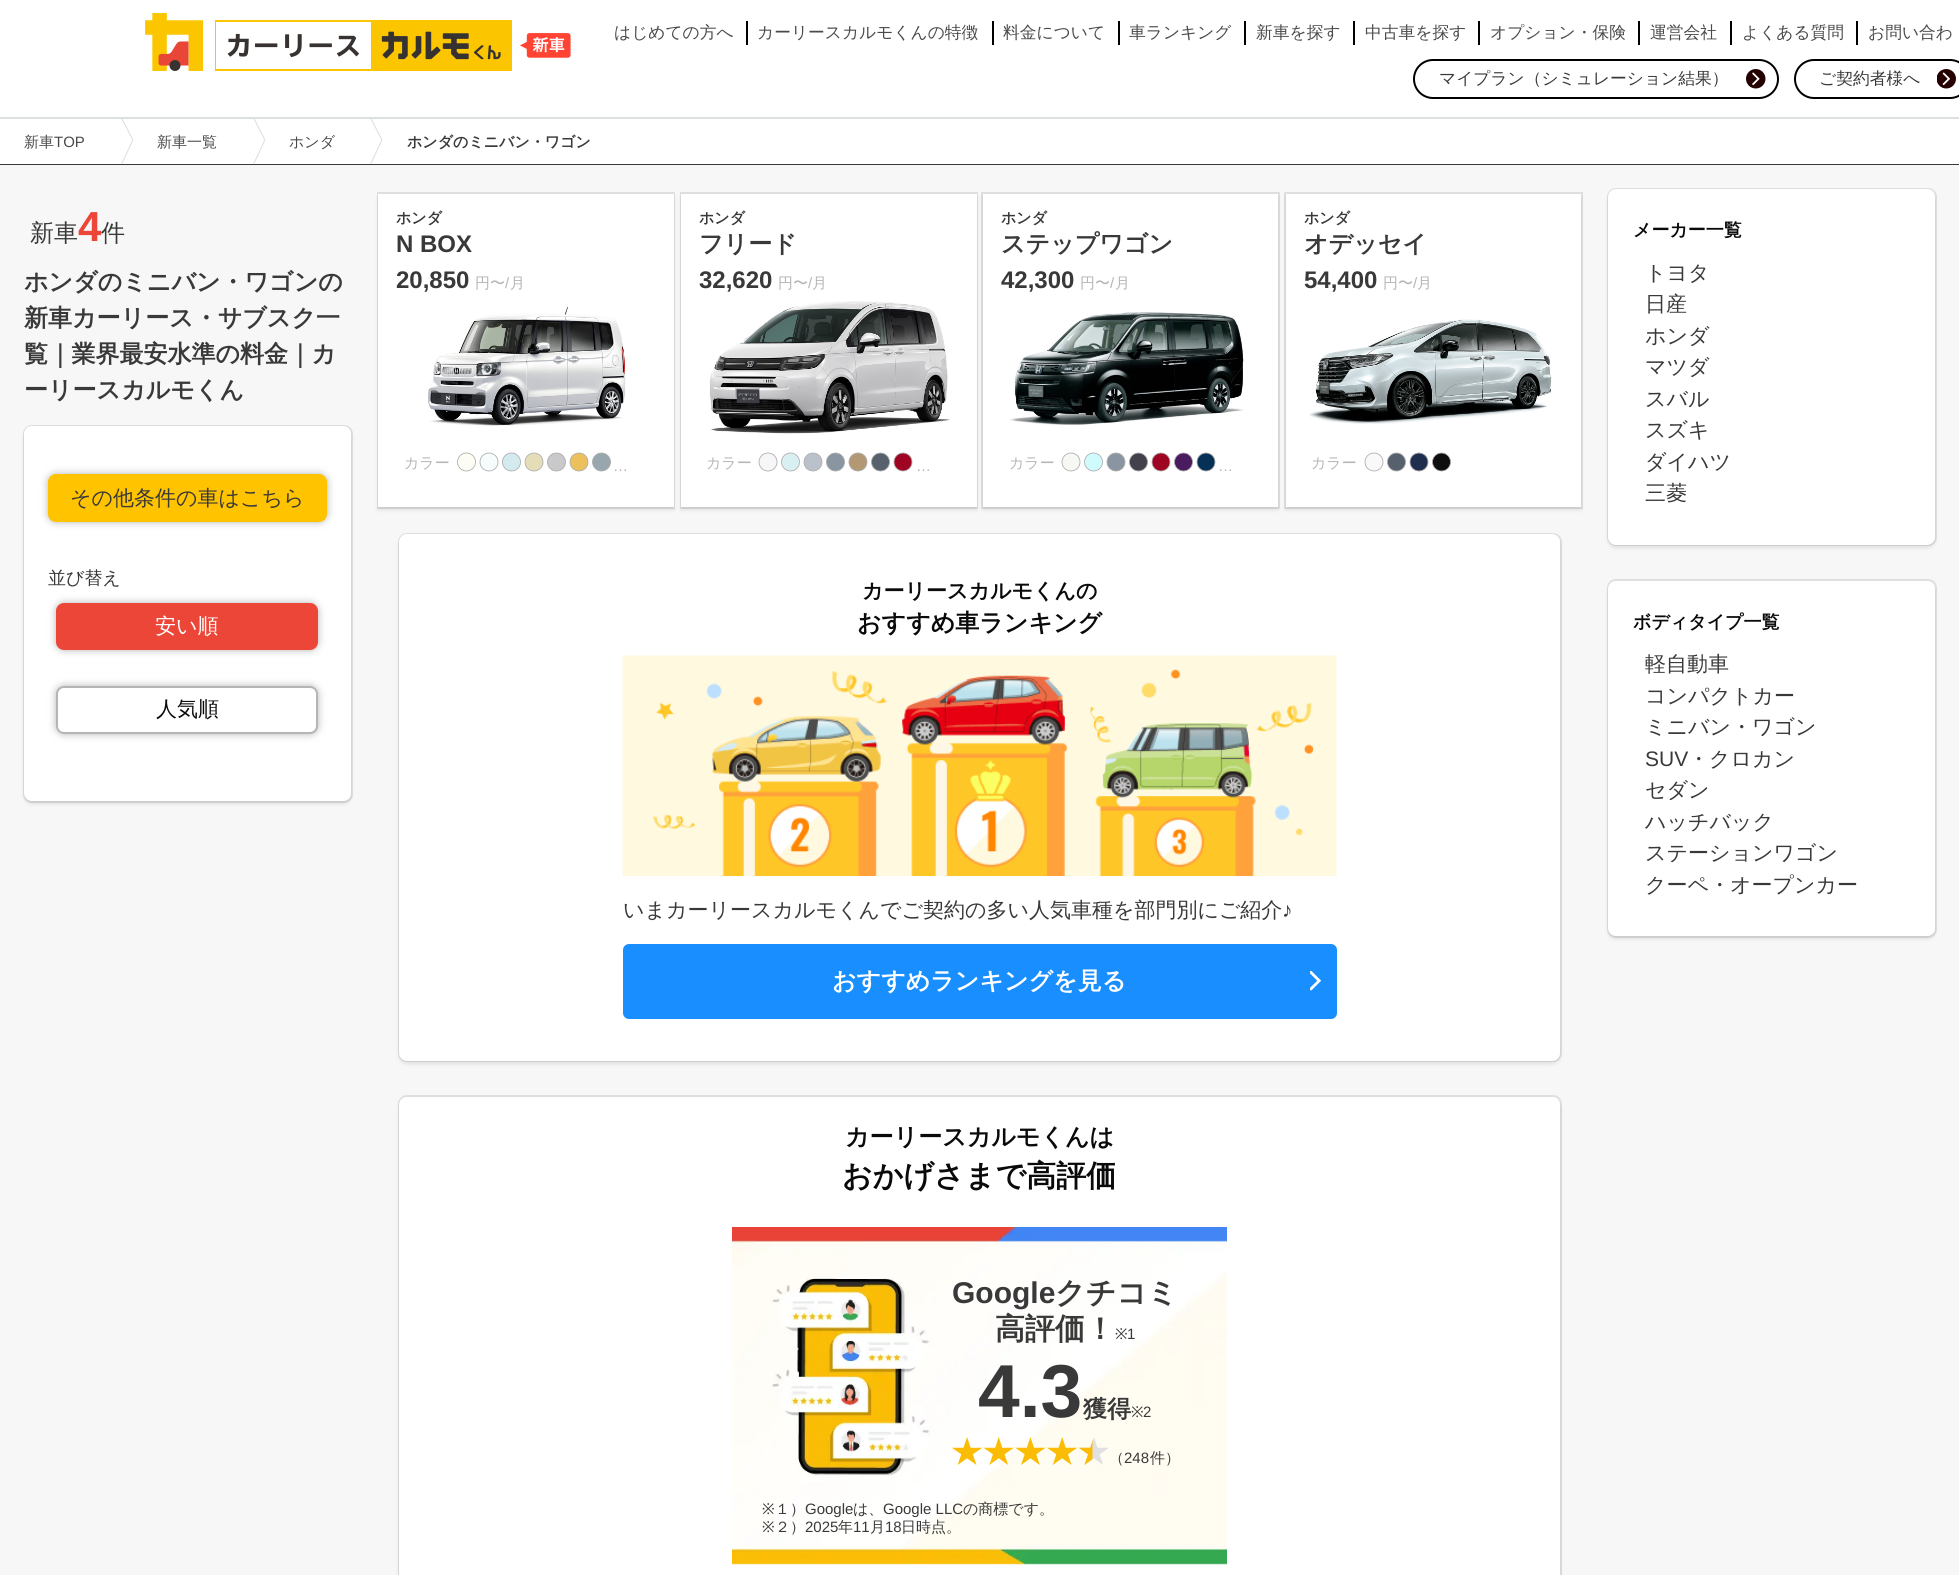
import math
import cairo

surface = cairo.ImageSurface(cairo.FORMAT_RGB24, 1959, 1575)
cr = cairo.Context(surface)
options = cairo.FontOptions()
options.set_hint_metrics(cairo.HINT_METRICS_OFF)
options.set_hint_style(cairo.HINT_STYLE_NONE)
cr.set_font_options(options)
cr.set_miter_limit(4)


def rgb(code):
    cr.set_source_rgb(*(v / 255 for v in bytes.fromhex(code[-6:])))


def rrect(x, y, w, h, r):
    cr.new_sub_path()
    for i, (u, v) in enumerate([(x + w - r, y + h - r), (x + r, y + h - r), (x + r, y + r), (x + w - r, y + r)]):
        cr.arc(u, v, r, i * math.pi / 2, (i + 1) * math.pi / 2)
    cr.close_path()


def soft_shadow(x, y, w, h, r, blur, alpha):
    cr.push_group_with_content(cairo.CONTENT_ALPHA)
    cr.set_operator(cairo.OPERATOR_SOURCE)
    for i in range(15, -16, -2):
        e = blur * i / 6
        if min(w, h) + 2 * e > 0:
            cr.set_source_rgba(0, 0, 0, alpha * math.erfc((i - 1) / 8.5) / 2)
            rrect(x - e, y - e, w + 2 * e, h + 2 * e, max(0, min(r + e + blur * .6, min(w, h) / 2 + e)))
            cr.fill()
    cr.mask(cr.pop_group())


def image(path, x, y, w, h):
    cr.save()
    cr.set_source_surface(cairo.ImageSurface.create_from_png(path), x, y)
    cr.rectangle(x, y, w, h)
    cr.fill()
    cr.restore()


rgb("#ffffff")
cr.paint()
image("img/1.png", 145, 13, 426, 58)
for x, y, w, h, color in [
    (746, 21, 2, 24, "#000000"),
    (992, 21, 2, 24, "#000000"),
    (1118, 21, 2, 24, "#000000"),
    (1244, 21, 2, 24, "#000000"),
    (1353, 21, 2, 24, "#000000"),
    (1478, 21, 2, 24, "#000000"),
    (1638, 21, 2, 24, "#000000"),
    (1730, 21, 2, 24, "#000000"),
    (1856, 21, 2, 24, "#000000"),
]:
    rgb(color)
    cr.rectangle(x, y, w, h)
    cr.fill()
image("img/2.png", 1746, 69, 20, 20)
rrect(1414, 60, 364, 38, 19)
cr.stroke()
image("img/3.png", 1937, 69, 19, 20)
rrect(1795, 60, 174, 38, 19)
cr.stroke()
rgb("#dce0e0")
cr.rectangle(0, 117, 1959, 2)
cr.fill()
rgb("#393939")
cr.rectangle(0, 164, 1959, 1)
cr.fill()
image("img/4.png", 121, 119, 13, 45)
image("img/5.png", 253, 119, 13, 45)
image("img/5.png", 370, 119, 13, 45)
rgb("#f7f7f7")
cr.rectangle(0, 165, 1959, 1410)
cr.fill()
rrect(24, 426, 328, 376, 8)
rgb("#dfdfdf")
cr.stroke()
rgb("#0a0a0a")
soft_shadow(24, 429, 327, 375, 8, 2, 0.1)
rgb("#ffffff")
rrect(24, 426, 327, 375, 8)
cr.fill()
rgb("#b5b5b5")
soft_shadow(48, 474, 279, 48, 8, 4, 1)
rgb("#ffc300")
rrect(48, 474, 279, 48, 8)
cr.fill()
rgb("#b5b5b5")
soft_shadow(56, 603, 262, 47, 8, 4, 1)
rgb("#eb4637")
rrect(56, 603, 262, 47, 8)
cr.fill()
rgb("#b5b5b5")
soft_shadow(56, 686, 262, 48, 8, 4, 1)
rgb("#ffffff")
rrect(57, 687, 260, 46, 7)
cr.fill_preserve()
rgb("#b5b5b5")
cr.stroke()
cr.rectangle(378, 193, 296, 315)
rgb("#dfdfdf")
cr.stroke()
rgb("#0a0a0a")
soft_shadow(378, 197, 296, 313, 0, 2, 0.1)
rgb("#ffffff")
cr.rectangle(378, 194, 296, 313)
cr.fill()
image("img/6.png", 428, 307, 198, 119)
rgb("#fefdf5")
cr.arc(466.5, 462, 9, 0, 2 * math.pi)
cr.fill_preserve()
rgb("#aaaaaa")
cr.set_line_width(0.8)
cr.stroke()
rgb("#f6fcfc")
cr.arc(489, 462, 9, 0, 2 * math.pi)
cr.fill_preserve()
rgb("#aaaaaa")
cr.stroke()
rgb("#d3eaee")
cr.arc(511.5, 462, 9, 0, 2 * math.pi)
cr.fill_preserve()
rgb("#aaaaaa")
cr.stroke()
rgb("#e5ddb8")
cr.arc(534, 462, 9, 0, 2 * math.pi)
cr.fill_preserve()
rgb("#aaaaaa")
cr.stroke()
rgb("#c9c8ca")
cr.arc(556.5, 462, 9, 0, 2 * math.pi)
cr.fill_preserve()
rgb("#aaaaaa")
cr.stroke()
rgb("#ecc05c")
cr.arc(579, 462, 9, 0, 2 * math.pi)
cr.fill_preserve()
rgb("#aaaaaa")
cr.stroke()
rgb("#98a7ae")
cr.arc(601.5, 462, 9, 0, 2 * math.pi)
cr.fill_preserve()
rgb("#aaaaaa")
cr.stroke()
cr.rectangle(681, 193, 296, 315)
rgb("#dfdfdf")
cr.set_line_width(2)
cr.stroke()
rgb("#0a0a0a")
soft_shadow(681, 197, 296, 313, 0, 2, 0.1)
rgb("#ffffff")
cr.rectangle(681, 194, 296, 313)
cr.fill()
image("img/7.png", 709, 301, 241, 133)
rgb("#f7f6f8")
cr.arc(768, 462, 9, 0, 2 * math.pi)
cr.fill_preserve()
rgb("#aaaaaa")
cr.set_line_width(0.8)
cr.stroke()
rgb("#d9f0f2")
cr.arc(790.5, 462, 9, 0, 2 * math.pi)
cr.fill_preserve()
rgb("#aaaaaa")
cr.stroke()
rgb("#bbc1cb")
cr.arc(813, 462, 9, 0, 2 * math.pi)
cr.fill_preserve()
rgb("#aaaaaa")
cr.stroke()
rgb("#8995a1")
cr.arc(835.5, 462, 9, 0, 2 * math.pi)
cr.fill_preserve()
rgb("#aaaaaa")
cr.stroke()
rgb("#b29873")
cr.arc(858, 462, 9, 0, 2 * math.pi)
cr.fill_preserve()
rgb("#aaaaaa")
cr.stroke()
rgb("#57616e")
cr.arc(880.5, 462, 9, 0, 2 * math.pi)
cr.fill_preserve()
rgb("#aaaaaa")
cr.stroke()
rgb("#9f0422")
cr.arc(903, 462, 9, 0, 2 * math.pi)
cr.fill_preserve()
rgb("#aaaaaa")
cr.stroke()
cr.rectangle(982, 193, 297, 315)
rgb("#dfdfdf")
cr.set_line_width(2)
cr.stroke()
rgb("#0a0a0a")
soft_shadow(983, 197, 295, 313, 0, 2, 0.1)
rgb("#ffffff")
cr.rectangle(983, 194, 295, 313)
cr.fill()
image("img/8.png", 1009, 312, 235, 113)
rgb("#f7f7f3")
cr.arc(1071, 462, 9, 0, 2 * math.pi)
cr.fill_preserve()
rgb("#aaaaaa")
cr.set_line_width(0.8)
cr.stroke()
rgb("#d0fbfd")
cr.arc(1093.5, 462, 9, 0, 2 * math.pi)
cr.fill_preserve()
rgb("#aaaaaa")
cr.stroke()
rgb("#8995a1")
cr.arc(1116, 462, 9, 0, 2 * math.pi)
cr.fill_preserve()
rgb("#aaaaaa")
cr.stroke()
rgb("#43414b")
cr.arc(1138.5, 462, 9, 0, 2 * math.pi)
cr.fill_preserve()
rgb("#aaaaaa")
cr.stroke()
rgb("#9f0422")
cr.arc(1161, 462, 9, 0, 2 * math.pi)
cr.fill_preserve()
rgb("#aaaaaa")
cr.stroke()
rgb("#4a1b5f")
cr.arc(1183.5, 462, 9, 0, 2 * math.pi)
cr.fill_preserve()
rgb("#aaaaaa")
cr.stroke()
rgb("#053157")
cr.arc(1206, 462, 9, 0, 2 * math.pi)
cr.fill_preserve()
rgb("#aaaaaa")
cr.stroke()
cr.rectangle(1285, 193, 297, 315)
rgb("#dfdfdf")
cr.set_line_width(2)
cr.stroke()
rgb("#0a0a0a")
soft_shadow(1286, 197, 295, 313, 0, 2, 0.1)
rgb("#ffffff")
cr.rectangle(1286, 194, 295, 313)
cr.fill()
image("img/9.png", 1309, 319, 243, 105)
rgb("#f9f9f9")
cr.arc(1374, 462, 9, 0, 2 * math.pi)
cr.fill_preserve()
rgb("#aaaaaa")
cr.set_line_width(0.8)
cr.stroke()
rgb("#57616e")
cr.arc(1396.5, 462, 9, 0, 2 * math.pi)
cr.fill_preserve()
rgb("#aaaaaa")
cr.stroke()
rgb("#1f2e4d")
cr.arc(1419, 462, 9, 0, 2 * math.pi)
cr.fill_preserve()
rgb("#aaaaaa")
cr.stroke()
rgb("#0e0e0e")
cr.arc(1441.5, 462, 9, 0, 2 * math.pi)
cr.fill_preserve()
rgb("#aaaaaa")
cr.stroke()
rrect(399, 534, 1162, 527, 8)
rgb("#dfdfdf")
cr.set_line_width(2)
cr.stroke()
rgb("#0a0a0a")
soft_shadow(399, 537, 1161, 527, 8, 2, 0.1)
rgb("#ffffff")
rrect(399, 534, 1161, 527, 8)
cr.fill()
image("img/10.png", 622, 655, 715, 221)
rgb("#198fff")
rrect(623, 944, 714, 75, 6)
cr.fill()
image("img/11.png", 1310, 971, 12, 20)
rrect(399, 1096, 1162, 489, 8)
rgb("#dfdfdf")
cr.stroke()
rgb("#0a0a0a")
soft_shadow(399, 1100, 1161, 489, 8, 2, 0.1)
rgb("#ffffff")
rrect(399, 1097, 1161, 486, 8)
cr.fill()
image("img/12.png", 732, 1227, 495, 338)
image("img/13.png", 952, 1437, 157, 28)
rrect(1608, 189, 328, 356, 8)
rgb("#dfdfdf")
cr.stroke()
rgb("#0a0a0a")
soft_shadow(1608, 192, 327, 356, 8, 2, 0.1)
rgb("#ffffff")
rrect(1608, 189, 327, 356, 8)
cr.fill()
rrect(1608, 580, 328, 357, 8)
rgb("#dfdfdf")
cr.stroke()
rgb("#0a0a0a")
soft_shadow(1608, 584, 327, 355, 8, 2, 0.1)
rgb("#ffffff")
rrect(1608, 581, 327, 355, 8)
cr.fill()
cr.select_font_face("WenQuanYi Zen Hei Medium")
cr.set_font_size(16.75)
rgb("#4a4a4a")
for x, y, s in [
    (614, 38, "はじめての方へ"),
    (757, 38, "カーリースカルモくんの特徴"),
    (1003, 38, "料金について"),
    (1129, 38, "車ランキング"),
    (1256, 38, "新車を探す"),
    (1365, 38, "中古車を探す"),
    (1490, 38, "オプション・保険"),
    (1650, 38, "運営会社"),
    (1742, 38, "よくある質問"),
    (1868, 38, "お問い合わ"),
]:
    cr.move_to(x, y)
    cr.show_text(s)
rgb("#393939")
cr.move_to(1439, 84)
cr.show_text("マイプラン（シミュレーション結果）")
cr.move_to(1819, 84)
cr.show_text("ご契約者様へ")
cr.set_font_size(15)
rgb("#4a4a4a")
cr.move_to(24, 147)
cr.show_text("新車")
cr.select_font_face("Liberation Sans")
cr.move_to(54, 147)
cr.show_text("TOP")
cr.select_font_face("WenQuanYi Zen Hei Medium")
cr.move_to(157, 147)
cr.show_text("新車一覧")
cr.move_to(289, 147)
cr.show_text("ホンダ")
cr.select_font_face("WenQuanYi Zen Hei", cairo.FONT_SLANT_NORMAL, cairo.FONT_WEIGHT_BOLD)
rgb("#393939")
cr.move_to(407, 147)
cr.show_text("ホンダのミニバン・ワゴン")
cr.select_font_face("WenQuanYi Zen Hei Medium")
cr.set_font_size(24)
cr.move_to(30, 241)
cr.show_text("新車")
cr.select_font_face("Liberation Sans", cairo.FONT_SLANT_NORMAL, cairo.FONT_WEIGHT_BOLD)
cr.set_font_size(42)
rgb("#eb4637")
cr.move_to(78, 241)
cr.show_text("4")
cr.select_font_face("WenQuanYi Zen Hei Medium")
cr.set_font_size(24)
rgb("#393939")
cr.move_to(101, 241)
cr.show_text("件")
cr.select_font_face("WenQuanYi Zen Hei", cairo.FONT_SLANT_NORMAL, cairo.FONT_WEIGHT_BOLD)
for x, y, s in [
    (24, 290, "ホンダのミニバン・ワゴンの"),
    (24, 326, "新車カーリース・サブスク一"),
    (24, 362, "覧｜業界最安水準の料金｜カ"),
    (24, 398, "ーリースカルモくん"),
]:
    cr.move_to(x, y)
    cr.show_text(s)
cr.select_font_face("WenQuanYi Zen Hei Medium")
cr.set_font_size(21)
cr.move_to(70, 505)
cr.show_text("その他条件の車はこちら")
cr.set_font_size(18)
cr.move_to(48, 584)
cr.show_text("並び替え")
cr.set_font_size(21)
rgb("#ffffff")
cr.move_to(155, 633)
cr.show_text("安い順")
rgb("#0a0a0a")
cr.move_to(156, 716)
cr.show_text("人気順")
cr.select_font_face("WenQuanYi Zen Hei", cairo.FONT_SLANT_NORMAL, cairo.FONT_WEIGHT_BOLD)
cr.set_font_size(15)
rgb("#393939")
cr.move_to(396, 223)
cr.show_text("ホンダ")
cr.select_font_face("Liberation Sans", cairo.FONT_SLANT_NORMAL, cairo.FONT_WEIGHT_BOLD)
cr.set_font_size(24)
cr.move_to(396, 252)
cr.show_text("N BOX")
cr.move_to(396, 288)
cr.show_text("20,850")
cr.select_font_face("WenQuanYi Zen Hei Medium")
cr.set_font_size(15)
rgb("#b5b5b5")
cr.move_to(475, 288)
cr.show_text("円〜")
cr.select_font_face("Liberation Sans")
cr.move_to(505, 288)
cr.show_text("/")
cr.select_font_face("WenQuanYi Zen Hei Medium")
cr.move_to(510, 288)
cr.show_text("月")
cr.move_to(404, 468)
cr.show_text("カラー")
cr.select_font_face("Liberation Sans")
cr.move_to(613, 471)
cr.show_text("…")
cr.select_font_face("WenQuanYi Zen Hei", cairo.FONT_SLANT_NORMAL, cairo.FONT_WEIGHT_BOLD)
rgb("#393939")
cr.move_to(699, 223)
cr.show_text("ホンダ")
cr.set_font_size(24)
cr.move_to(699, 252)
cr.show_text("フリード")
cr.select_font_face("Liberation Sans", cairo.FONT_SLANT_NORMAL, cairo.FONT_WEIGHT_BOLD)
cr.move_to(699, 288)
cr.show_text("32,620")
cr.select_font_face("WenQuanYi Zen Hei Medium")
cr.set_font_size(15)
rgb("#b5b5b5")
cr.move_to(778, 288)
cr.show_text("円〜")
cr.select_font_face("Liberation Sans")
cr.move_to(808, 288)
cr.show_text("/")
cr.select_font_face("WenQuanYi Zen Hei Medium")
cr.move_to(812, 288)
cr.show_text("月")
cr.move_to(706, 468)
cr.show_text("カラー")
cr.select_font_face("Liberation Sans")
cr.move_to(916, 471)
cr.show_text("…")
cr.select_font_face("WenQuanYi Zen Hei", cairo.FONT_SLANT_NORMAL, cairo.FONT_WEIGHT_BOLD)
rgb("#393939")
cr.move_to(1001, 223)
cr.show_text("ホンダ")
cr.set_font_size(24)
cr.move_to(1001, 252)
cr.show_text("ステップワゴン")
cr.select_font_face("Liberation Sans", cairo.FONT_SLANT_NORMAL, cairo.FONT_WEIGHT_BOLD)
cr.move_to(1001, 288)
cr.show_text("42,300")
cr.select_font_face("WenQuanYi Zen Hei Medium")
cr.set_font_size(15)
rgb("#b5b5b5")
cr.move_to(1080, 288)
cr.show_text("円〜")
cr.select_font_face("Liberation Sans")
cr.move_to(1110, 288)
cr.show_text("/")
cr.select_font_face("WenQuanYi Zen Hei Medium")
cr.move_to(1115, 288)
cr.show_text("月")
cr.move_to(1009, 468)
cr.show_text("カラー")
cr.select_font_face("Liberation Sans")
cr.move_to(1218, 471)
cr.show_text("…")
cr.select_font_face("WenQuanYi Zen Hei", cairo.FONT_SLANT_NORMAL, cairo.FONT_WEIGHT_BOLD)
rgb("#393939")
cr.move_to(1304, 223)
cr.show_text("ホンダ")
cr.set_font_size(24)
cr.move_to(1304, 252)
cr.show_text("オデッセイ")
cr.select_font_face("Liberation Sans", cairo.FONT_SLANT_NORMAL, cairo.FONT_WEIGHT_BOLD)
cr.move_to(1304, 288)
cr.show_text("54,400")
cr.select_font_face("WenQuanYi Zen Hei Medium")
cr.set_font_size(15)
rgb("#b5b5b5")
cr.move_to(1383, 288)
cr.show_text("円〜")
cr.select_font_face("Liberation Sans")
cr.move_to(1413, 288)
cr.show_text("/")
cr.select_font_face("WenQuanYi Zen Hei Medium")
cr.move_to(1417, 288)
cr.show_text("月")
cr.move_to(1311, 468)
cr.show_text("カラー")
cr.select_font_face("WenQuanYi Zen Hei", cairo.FONT_SLANT_NORMAL, cairo.FONT_WEIGHT_BOLD)
cr.set_font_size(21)
rgb("#0a0a0a")
cr.move_to(862, 598)
cr.show_text("カーリースカルモくんの")
cr.set_font_size(24)
cr.move_to(857, 631)
cr.show_text("おすすめ車ランキング")
cr.select_font_face("WenQuanYi Zen Hei Medium")
cr.set_font_size(21)
rgb("#393939")
cr.move_to(623, 917)
cr.show_text("いまカーリースカルモくんでご契約の多い人気車種を部門別にご紹介")
cr.select_font_face("Liberation Sans")
cr.move_to(1282, 917)
cr.show_text("♪")
cr.select_font_face("WenQuanYi Zen Hei", cairo.FONT_SLANT_NORMAL, cairo.FONT_WEIGHT_BOLD)
cr.set_font_size(24)
rgb("#ffffff")
cr.move_to(832, 989)
cr.show_text("おすすめランキングを見る")
rgb("#0a0a0a")
cr.move_to(845, 1145)
cr.show_text("カーリースカルモくんは")
cr.set_font_size(30)
cr.move_to(842, 1186)
cr.show_text("おかげさまで高評価")
cr.select_font_face("Liberation Sans", cairo.FONT_SLANT_NORMAL, cairo.FONT_WEIGHT_BOLD)
rgb("#393939")
cr.move_to(952, 1303)
cr.show_text("Google")
cr.select_font_face("WenQuanYi Zen Hei", cairo.FONT_SLANT_NORMAL, cairo.FONT_WEIGHT_BOLD)
cr.move_to(1055, 1303)
cr.show_text("クチコミ")
cr.move_to(995, 1339)
cr.show_text("高評価！")
cr.select_font_face("Noto Sans")
cr.set_font_size(15)
cr.move_to(1115, 1339)
cr.show_text("※")
cr.select_font_face("Liberation Sans")
cr.move_to(1127, 1339)
cr.show_text("1")
cr.select_font_face("Liberation Sans", cairo.FONT_SLANT_NORMAL, cairo.FONT_WEIGHT_BOLD)
cr.set_font_size(75)
cr.move_to(978, 1417)
cr.show_text("4.3")
cr.select_font_face("WenQuanYi Zen Hei", cairo.FONT_SLANT_NORMAL, cairo.FONT_WEIGHT_BOLD)
cr.set_font_size(24)
cr.move_to(1083, 1417)
cr.show_text("獲得")
cr.select_font_face("Noto Sans")
cr.set_font_size(15)
cr.move_to(1131, 1417)
cr.show_text("※")
cr.select_font_face("Liberation Sans")
cr.move_to(1143, 1417)
cr.show_text("2")
cr.select_font_face("WenQuanYi Zen Hei Medium")
cr.move_to(1109, 1463)
cr.show_text("（")
cr.select_font_face("Liberation Sans")
cr.move_to(1124, 1463)
cr.show_text("248")
cr.select_font_face("WenQuanYi Zen Hei Medium")
cr.move_to(1150, 1463)
cr.show_text("件）")
cr.select_font_face("Noto Sans")
cr.move_to(762, 1514)
cr.show_text("※")
cr.select_font_face("WenQuanYi Zen Hei Medium")
cr.move_to(775, 1514)
cr.show_text("１）")
cr.select_font_face("Liberation Sans")
cr.move_to(805, 1514)
cr.show_text("Google")
cr.select_font_face("WenQuanYi Zen Hei Medium")
cr.move_to(853, 1514)
cr.show_text("は、")
cr.select_font_face("Liberation Sans")
cr.move_to(883, 1514)
cr.show_text("Google LLC")
cr.select_font_face("WenQuanYi Zen Hei Medium")
cr.move_to(963, 1514)
cr.show_text("の商標です。")
cr.select_font_face("Noto Sans")
cr.move_to(762, 1532)
cr.show_text("※")
cr.select_font_face("WenQuanYi Zen Hei Medium")
cr.move_to(775, 1532)
cr.show_text("２）")
cr.select_font_face("Liberation Sans")
cr.move_to(805, 1532)
cr.show_text("2025")
cr.select_font_face("WenQuanYi Zen Hei Medium")
cr.move_to(838, 1532)
cr.show_text("年")
cr.select_font_face("Liberation Sans")
cr.move_to(853, 1532)
cr.show_text("11")
cr.select_font_face("WenQuanYi Zen Hei Medium")
cr.move_to(870, 1532)
cr.show_text("月")
cr.select_font_face("Liberation Sans")
cr.move_to(885, 1532)
cr.show_text("18")
cr.select_font_face("WenQuanYi Zen Hei Medium")
cr.move_to(901, 1532)
cr.show_text("日時点。")
cr.select_font_face("WenQuanYi Zen Hei", cairo.FONT_SLANT_NORMAL, cairo.FONT_WEIGHT_BOLD)
cr.set_font_size(18)
rgb("#0a0a0a")
cr.move_to(1633, 236)
cr.show_text("メーカー一覧")
cr.select_font_face("WenQuanYi Zen Hei Medium")
cr.set_font_size(21)
rgb("#393939")
for x, y, s in [
    (1645, 280, "トヨタ"),
    (1645, 311, "日産"),
    (1645, 343, "ホンダ"),
    (1645, 374, "マツダ"),
    (1645, 406, "スバル"),
    (1645, 437, "スズキ"),
    (1645, 469, "ダイハツ"),
    (1645, 500, "三菱"),
]:
    cr.move_to(x, y)
    cr.show_text(s)
cr.select_font_face("WenQuanYi Zen Hei", cairo.FONT_SLANT_NORMAL, cairo.FONT_WEIGHT_BOLD)
cr.set_font_size(18)
rgb("#0a0a0a")
cr.move_to(1633, 628)
cr.show_text("ボディタイプ一覧")
cr.select_font_face("WenQuanYi Zen Hei Medium")
cr.set_font_size(21)
rgb("#393939")
for x, y, s in [
    (1645, 671, "軽自動車"),
    (1645, 703, "コンパクトカー"),
    (1645, 734, "ミニバン・ワゴン"),
]:
    cr.move_to(x, y)
    cr.show_text(s)
cr.select_font_face("Liberation Sans")
cr.move_to(1645, 766)
cr.show_text("SUV")
cr.select_font_face("WenQuanYi Zen Hei Medium")
for x, y, s in [
    (1688, 766, "・クロカン"),
    (1645, 797, "セダン"),
    (1645, 829, "ハッチバック"),
    (1645, 860, "ステーションワゴン"),
    (1645, 892, "クーペ・オープンカー"),
]:
    cr.move_to(x, y)
    cr.show_text(s)
surface.write_to_png("page.png")
